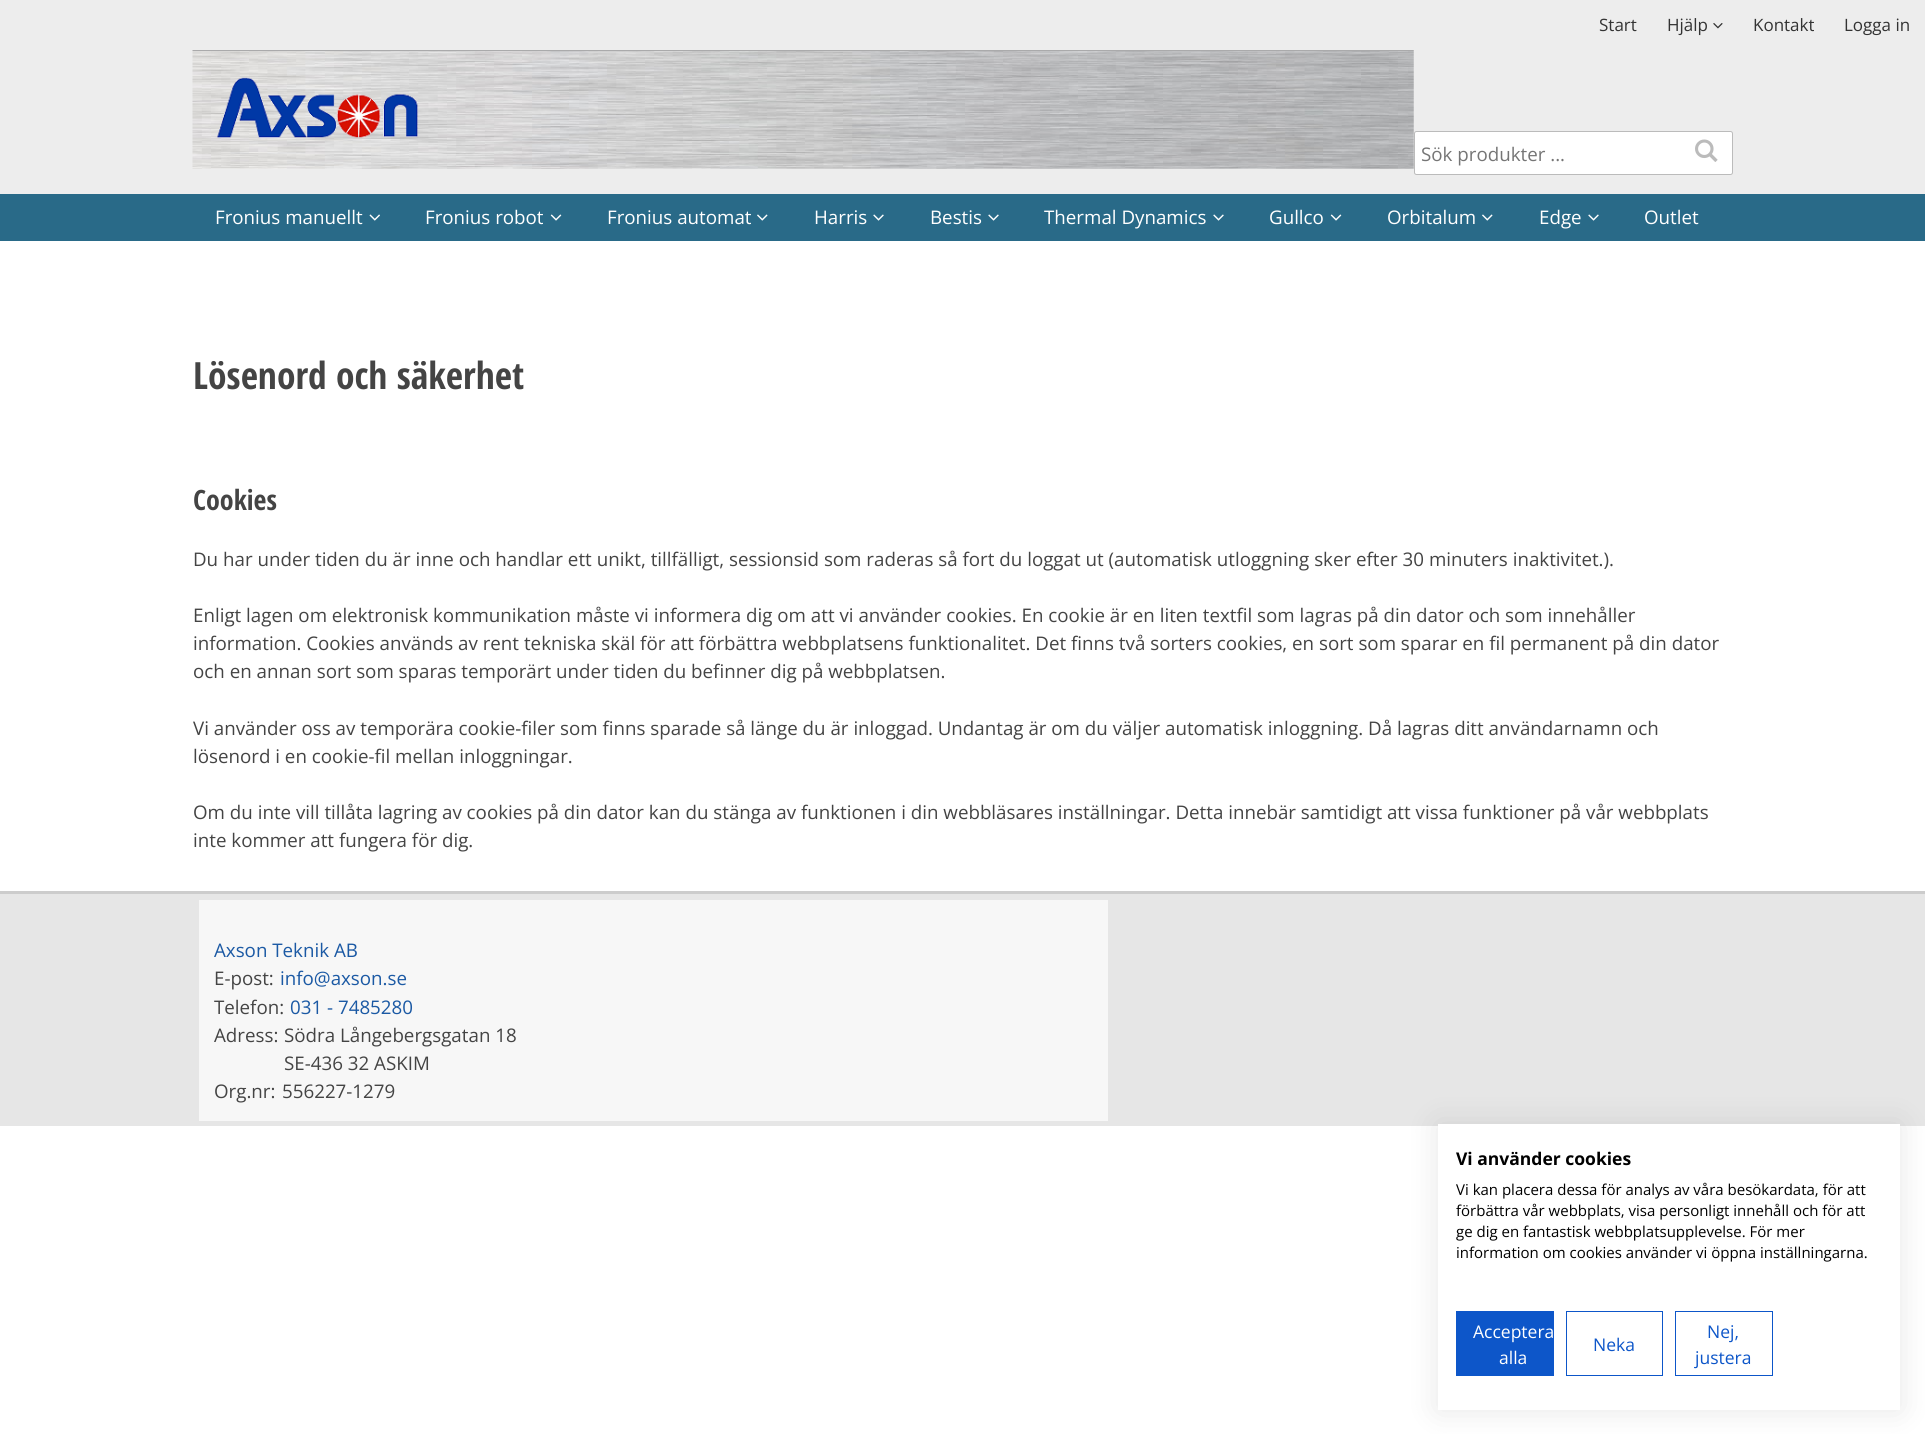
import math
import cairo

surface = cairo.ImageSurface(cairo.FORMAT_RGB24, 1925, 1434)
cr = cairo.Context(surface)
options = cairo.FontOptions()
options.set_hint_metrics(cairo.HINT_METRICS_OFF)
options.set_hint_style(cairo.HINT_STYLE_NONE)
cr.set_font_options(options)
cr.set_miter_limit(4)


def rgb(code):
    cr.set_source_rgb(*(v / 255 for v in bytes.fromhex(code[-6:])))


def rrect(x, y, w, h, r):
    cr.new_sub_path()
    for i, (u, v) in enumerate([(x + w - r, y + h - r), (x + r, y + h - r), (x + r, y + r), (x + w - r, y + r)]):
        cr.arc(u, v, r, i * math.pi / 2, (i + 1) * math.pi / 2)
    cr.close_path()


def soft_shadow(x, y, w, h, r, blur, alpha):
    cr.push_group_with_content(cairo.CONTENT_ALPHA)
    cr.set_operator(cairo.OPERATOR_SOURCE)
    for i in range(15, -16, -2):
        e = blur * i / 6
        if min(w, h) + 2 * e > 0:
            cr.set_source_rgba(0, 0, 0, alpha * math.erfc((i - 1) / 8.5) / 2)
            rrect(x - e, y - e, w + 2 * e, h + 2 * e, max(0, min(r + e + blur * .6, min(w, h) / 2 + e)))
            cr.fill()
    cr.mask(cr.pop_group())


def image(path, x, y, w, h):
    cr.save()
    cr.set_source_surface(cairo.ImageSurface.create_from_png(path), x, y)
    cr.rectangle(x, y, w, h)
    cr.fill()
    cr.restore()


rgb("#ffffff")
cr.paint()
rgb("#ededed")
cr.rectangle(0, 0, 1925, 194)
cr.fill()
image("img/1.png", 1713, 23, 10, 6)
image("img/2.png", 192, 50, 1222, 119)
rgb("#ffffff")
rrect(1414.5, 131.5, 318, 43, 2)
cr.fill_preserve()
rgb("#bbbbbb")
cr.set_line_width(1)
cr.stroke()
image("img/3.png", 1695, 139, 23, 23)
rgb("#296a88")
cr.rectangle(0, 194, 1925, 47)
cr.fill()
image("img/4.png", 369, 214, 11, 7)
image("img/5.png", 550, 214, 12, 7)
image("img/6.png", 757, 214, 11, 7)
image("img/7.png", 873, 214, 11, 7)
image("img/7.png", 988, 214, 11, 7)
image("img/7.png", 1213, 214, 11, 7)
image("img/5.png", 1330, 214, 12, 7)
image("img/6.png", 1482, 214, 11, 7)
image("img/7.png", 1588, 214, 11, 7)
for x, y, w, h, color in [
    (0, 894, 1925, 232, "#e6e6e6"),
    (0, 891, 1925, 3, "#cccccc"),
    (199, 900, 909, 221, "#f7f7f7"),
]:
    rgb(color)
    cr.rectangle(x, y, w, h)
    cr.fill()
rgb("#000000")
soft_shadow(1438, 1124, 462, 286, 0, 15, 0.1)
rgb("#ffffff")
cr.rectangle(1438, 1124, 462, 286)
cr.fill()
rgb("#0d56c9")
cr.rectangle(1456, 1311, 98, 65)
cr.fill()
cr.rectangle(1566.5, 1311.5, 96, 64)
cr.stroke()
cr.rectangle(1675.5, 1311.5, 97, 64)
cr.stroke()
cr.select_font_face("Open Sans")
cr.set_font_size(17)
rgb("#333333")
for x, y, s in [
    (1599, 31, "Start"),
    (1667, 31, "Hjälp"),
    (1753, 31, "Kontakt"),
    (1844, 31, "Logga in"),
]:
    cr.move_to(x, y)
    cr.show_text(s)
cr.set_font_size(18.75)
rgb("#757575")
cr.move_to(1421, 161)
cr.show_text("Sök produkter ...")
rgb("#ffffff")
for x, y, s in [
    (215, 224, "Fronius manuellt"),
    (425, 224, "Fronius robot"),
    (607, 224, "Fronius automat"),
    (814, 224, "Harris"),
    (930, 224, "Bestis"),
    (1044, 224, "Thermal Dynamics"),
    (1269, 224, "Gullco"),
    (1387, 224, "Orbitalum"),
    (1539, 224, "Edge"),
    (1644, 224, "Outlet"),
]:
    cr.move_to(x, y)
    cr.show_text(s)
cr.select_font_face("Open Sans Condensed", cairo.FONT_SLANT_NORMAL, cairo.FONT_WEIGHT_BOLD)
cr.set_font_size(37.5)
rgb("#444444")
cr.move_to(193, 389)
cr.show_text("Lösenord och säkerhet")
cr.set_font_size(28)
cr.move_to(193, 510)
cr.show_text("Cookies")
cr.select_font_face("Open Sans")
cr.set_font_size(18.75)
for x, y, s in [
    (193, 566, "Du har under tiden du är inne och handlar ett unikt, tillfälligt, sessionsid som raderas så fort du loggat ut (automatisk utloggning sker efter 30 minuters inaktivitet.)."),
    (193, 622, "Enligt lagen om elektronisk kommunikation måste vi informera dig om att vi använder cookies. En cookie är en liten textfil som lagras på din dator och som innehåller"),
    (193, 650, "information. Cookies används av rent tekniska skäl för att förbättra webbplatsens funktionalitet. Det finns två sorters cookies, en sort som sparar en fil permanent på din dator"),
    (193, 678, "och en annan sort som sparas temporärt under tiden du befinner dig på webbplatsen."),
    (193, 735, "Vi använder oss av temporära cookie-filer som finns sparade så länge du är inloggad. Undantag är om du väljer automatisk inloggning. Då lagras ditt användarnamn och"),
    (193, 763, "lösenord i en cookie-fil mellan inloggningar."),
    (193, 819, "Om du inte vill tillåta lagring av cookies på din dator kan du stänga av funktionen i din webbläsares inställningar. Detta innebär samtidigt att vissa funktioner på vår webbplats"),
    (193, 847, "inte kommer att fungera för dig."),
]:
    cr.move_to(x, y)
    cr.show_text(s)
rgb("#1b59a4")
cr.move_to(214, 957)
cr.show_text("Axson Teknik AB")
rgb("#444444")
cr.move_to(214, 985)
cr.show_text("E-post:")
rgb("#1b59a4")
cr.move_to(280, 985)
cr.show_text("info@axson.se")
rgb("#444444")
cr.move_to(214, 1014)
cr.show_text("Telefon:")
rgb("#1b59a4")
cr.move_to(290, 1014)
cr.show_text("031 - 7485280")
rgb("#444444")
for x, y, s in [
    (214, 1042, "Adress:"),
    (284, 1042, "Södra Långebergsgatan 18"),
    (284, 1070, "SE-436 32 ASKIM"),
    (214, 1098, "Org.nr:"),
    (282, 1098, "556227-1279"),
]:
    cr.move_to(x, y)
    cr.show_text(s)
cr.select_font_face("Open Sans", cairo.FONT_SLANT_NORMAL, cairo.FONT_WEIGHT_BOLD)
cr.set_font_size(17.5)
rgb("#000000")
cr.move_to(1456, 1165)
cr.show_text("Vi använder cookies")
cr.select_font_face("Open Sans")
cr.set_font_size(15)
for x, y, s in [
    (1456, 1195, "Vi kan placera dessa för analys av våra besökardata, för att"),
    (1456, 1216, "förbättra vår webbplats, visa personligt innehåll och för att"),
    (1456, 1237, "ge dig en fantastisk webbplatsupplevelse. För mer"),
    (1456, 1258, "information om cookies använder vi öppna inställningarna."),
]:
    cr.move_to(x, y)
    cr.show_text(s)
cr.set_font_size(17.5)
rgb("#ffffff")
cr.move_to(1473, 1338)
cr.show_text("Acceptera")
cr.move_to(1499, 1364)
cr.show_text("alla")
rgb("#0d56c9")
for x, y, s in [
    (1593, 1351, "Neka"),
    (1707, 1338, "Nej,"),
    (1695, 1364, "justera"),
]:
    cr.move_to(x, y)
    cr.show_text(s)
surface.write_to_png("page.png")
